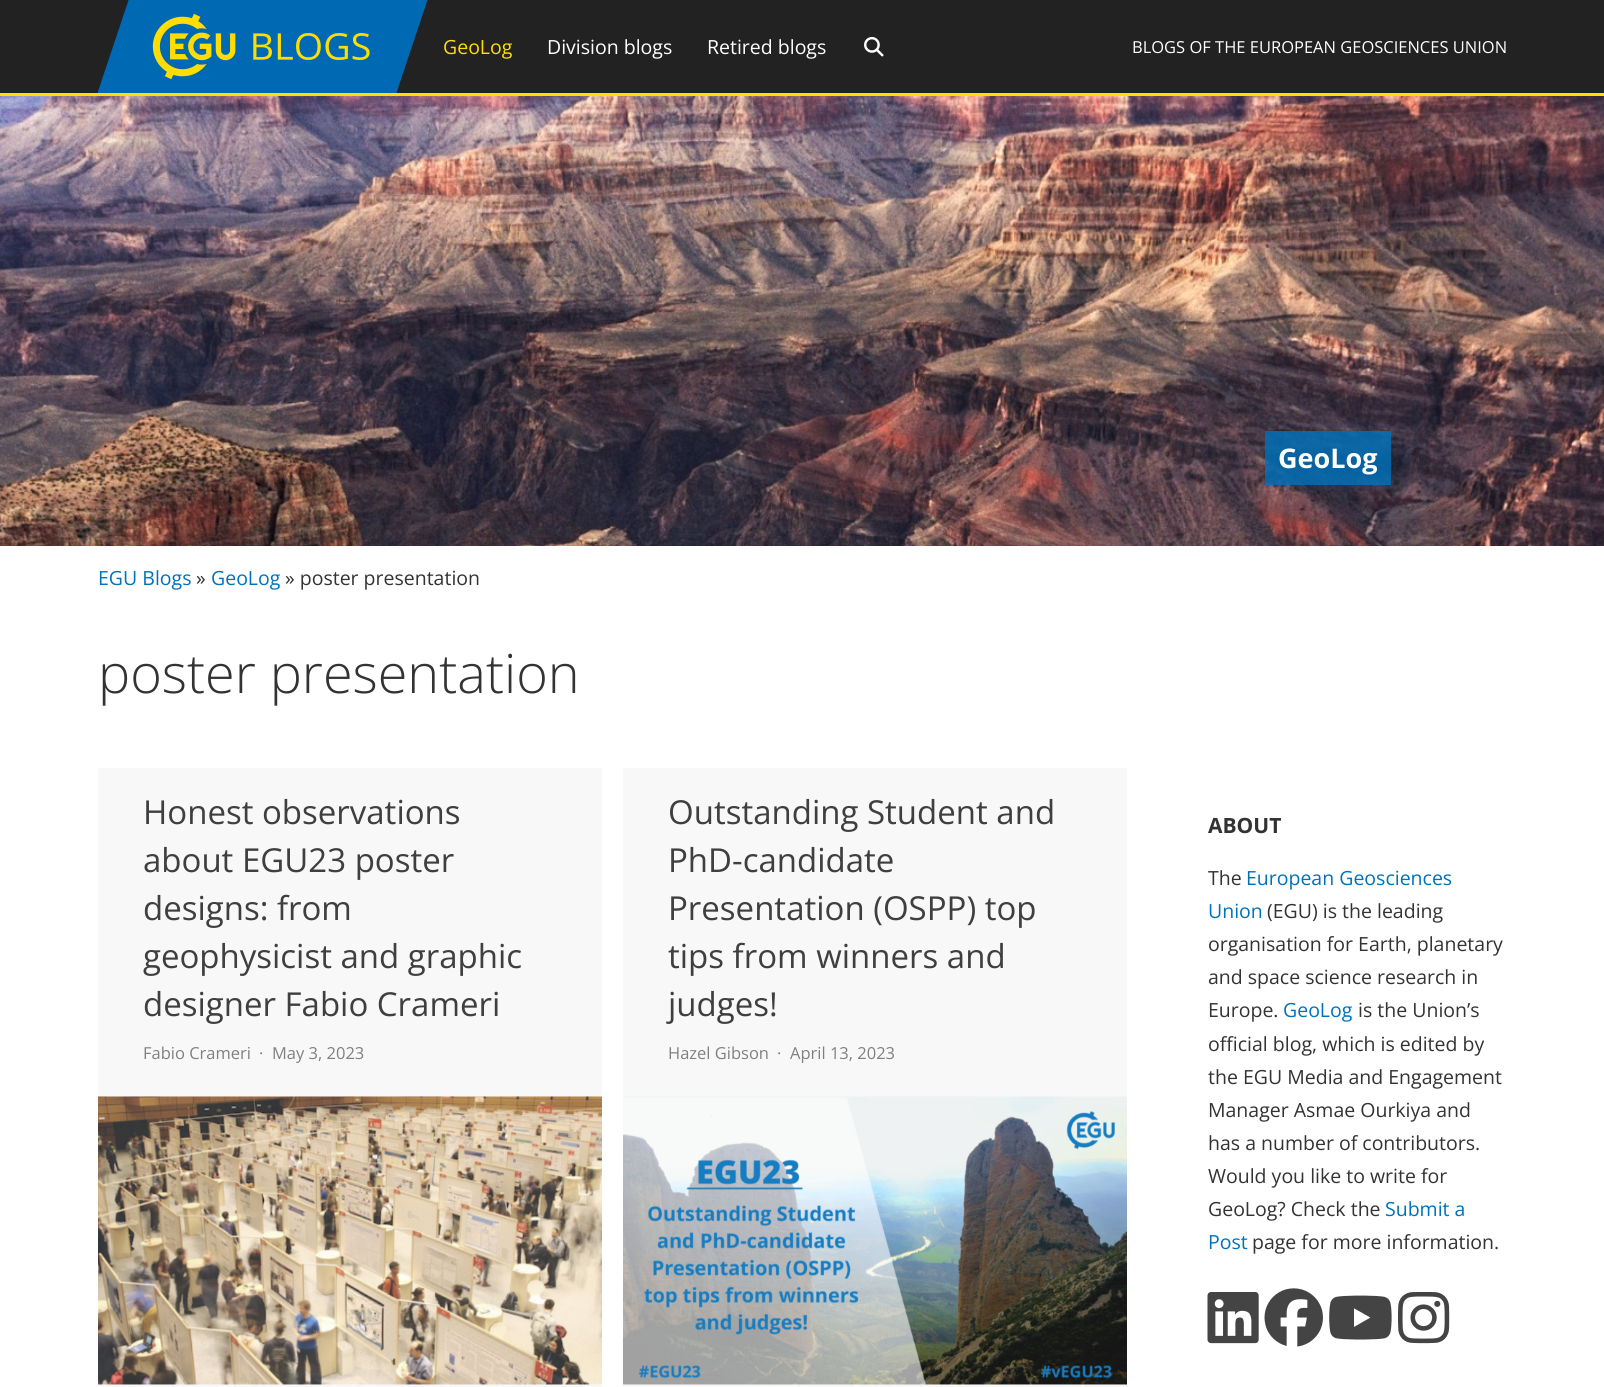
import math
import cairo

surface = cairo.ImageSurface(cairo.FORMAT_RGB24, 1604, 1387)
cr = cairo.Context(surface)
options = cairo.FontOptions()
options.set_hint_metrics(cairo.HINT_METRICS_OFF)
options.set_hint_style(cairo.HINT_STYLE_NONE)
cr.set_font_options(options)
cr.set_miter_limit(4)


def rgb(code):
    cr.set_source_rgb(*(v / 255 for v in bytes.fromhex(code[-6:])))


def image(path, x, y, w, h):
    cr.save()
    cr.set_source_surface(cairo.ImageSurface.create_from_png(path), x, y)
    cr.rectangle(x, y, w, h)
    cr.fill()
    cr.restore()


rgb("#ffffff")
cr.paint()
rgb("#222222")
cr.rectangle(0, 0, 1604, 93)
cr.fill()
rgb("#ffde00")
cr.rectangle(0, 93, 1604, 3)
cr.fill()
image("img/1.png", 98, 0, 330, 93)
image("img/2.png", 864, 36, 20, 21)
image("img/3.png", 0, 96, 1604, 450)
cr.set_source_rgba(0, 0.447, 0.737, 0.8)
cr.rectangle(1265, 431, 126, 54)
cr.fill()
rgb("#f8f8f8")
cr.rectangle(98, 768, 504, 619)
cr.fill()
image("img/4.png", 98, 1096, 504, 289)
cr.rectangle(623, 768, 504, 619)
cr.fill()
image("img/5.png", 623, 1096, 504, 289)
image("img/6.png", 1207, 1292, 52, 52)
image("img/7.png", 1264, 1288, 59, 59)
image("img/8.png", 1329, 1295, 63, 45)
image("img/9.png", 1398, 1292, 52, 52)
cr.select_font_face("Open Sans")
cr.set_font_size(19.5)
rgb("#ffde00")
cr.move_to(443, 54)
cr.show_text("GeoLog")
rgb("#ffffff")
cr.move_to(547, 54)
cr.show_text("Division blogs")
cr.move_to(707, 54)
cr.show_text("Retired blogs")
cr.set_font_size(16.5)
cr.move_to(1132, 53)
cr.show_text("BLOGS OF THE EUROPEAN GEOSCIENCES UNION")
cr.select_font_face("Open Sans", cairo.FONT_SLANT_NORMAL, cairo.FONT_WEIGHT_BOLD)
cr.set_font_size(27)
cr.move_to(1278, 468)
cr.show_text("GeoLog")
cr.select_font_face("Open Sans")
cr.set_font_size(19.5)
rgb("#0072bc")
cr.move_to(98, 585)
cr.show_text("EGU Blogs")
rgb("#333333")
cr.move_to(196, 585)
cr.show_text("»")
rgb("#0072bc")
cr.move_to(211, 585)
cr.show_text("GeoLog")
rgb("#333333")
cr.move_to(285, 585)
cr.show_text("» poster presentation")
cr.select_font_face("Open Sans Light")
cr.set_font_size(54)
cr.move_to(98, 693)
cr.show_text("poster presentation")
cr.select_font_face("Open Sans")
cr.set_font_size(33)
rgb("#3f3f3f")
for x, y, s in [
    (143, 824, "Honest observations"),
    (143, 872, "about EGU23 poster"),
    (143, 920, "designs: from"),
    (143, 968, "geophysicist and graphic"),
    (143, 1016, "designer Fabio Crameri"),
]:
    cr.move_to(x, y)
    cr.show_text(s)
cr.set_font_size(16.5)
rgb("#808080")
for x, y, s in [
    (143, 1059, "Fabio Crameri"),
    (259, 1059, "·"),
    (272, 1059, "May 3, 2023"),
]:
    cr.move_to(x, y)
    cr.show_text(s)
cr.set_font_size(33)
rgb("#3f3f3f")
for x, y, s in [
    (668, 824, "Outstanding Student and"),
    (668, 872, "PhD-candidate"),
    (668, 920, "Presentation (OSPP) top"),
    (668, 968, "tips from winners and"),
    (668, 1016, "judges!"),
]:
    cr.move_to(x, y)
    cr.show_text(s)
cr.set_font_size(16.5)
rgb("#808080")
for x, y, s in [
    (668, 1059, "Hazel Gibson"),
    (777, 1059, "·"),
    (790, 1059, "April 13, 2023"),
]:
    cr.move_to(x, y)
    cr.show_text(s)
cr.select_font_face("Open Sans", cairo.FONT_SLANT_NORMAL, cairo.FONT_WEIGHT_BOLD)
cr.set_font_size(21)
rgb("#333333")
cr.move_to(1208, 833)
cr.show_text("ABOUT")
cr.select_font_face("Open Sans")
cr.set_font_size(19.5)
cr.move_to(1208, 885)
cr.show_text("The")
rgb("#0072bc")
cr.move_to(1246, 885)
cr.show_text("European Geosciences")
cr.move_to(1208, 918)
cr.show_text("Union")
rgb("#333333")
for x, y, s in [
    (1267, 918, "(EGU) is the leading"),
    (1208, 951, "organisation for Earth, planetary"),
    (1208, 984, "and space science research in"),
    (1208, 1017, "Europe."),
]:
    cr.move_to(x, y)
    cr.show_text(s)
rgb("#0072bc")
cr.move_to(1283, 1017)
cr.show_text("GeoLog")
rgb("#333333")
for x, y, s in [
    (1358, 1017, "is the Union’s"),
    (1208, 1051, "official blog, which is edited by"),
    (1208, 1084, "the EGU Media and Engagement"),
    (1208, 1117, "Manager Asmae Ourkiya and"),
    (1208, 1150, "has a number of contributors."),
    (1208, 1183, "Would you like to write for"),
    (1208, 1216, "GeoLog? Check the"),
]:
    cr.move_to(x, y)
    cr.show_text(s)
rgb("#0072bc")
cr.move_to(1385, 1216)
cr.show_text("Submit a")
cr.move_to(1208, 1249)
cr.show_text("Post")
rgb("#333333")
cr.move_to(1252, 1249)
cr.show_text("page for more information.")
surface.write_to_png("page.png")
